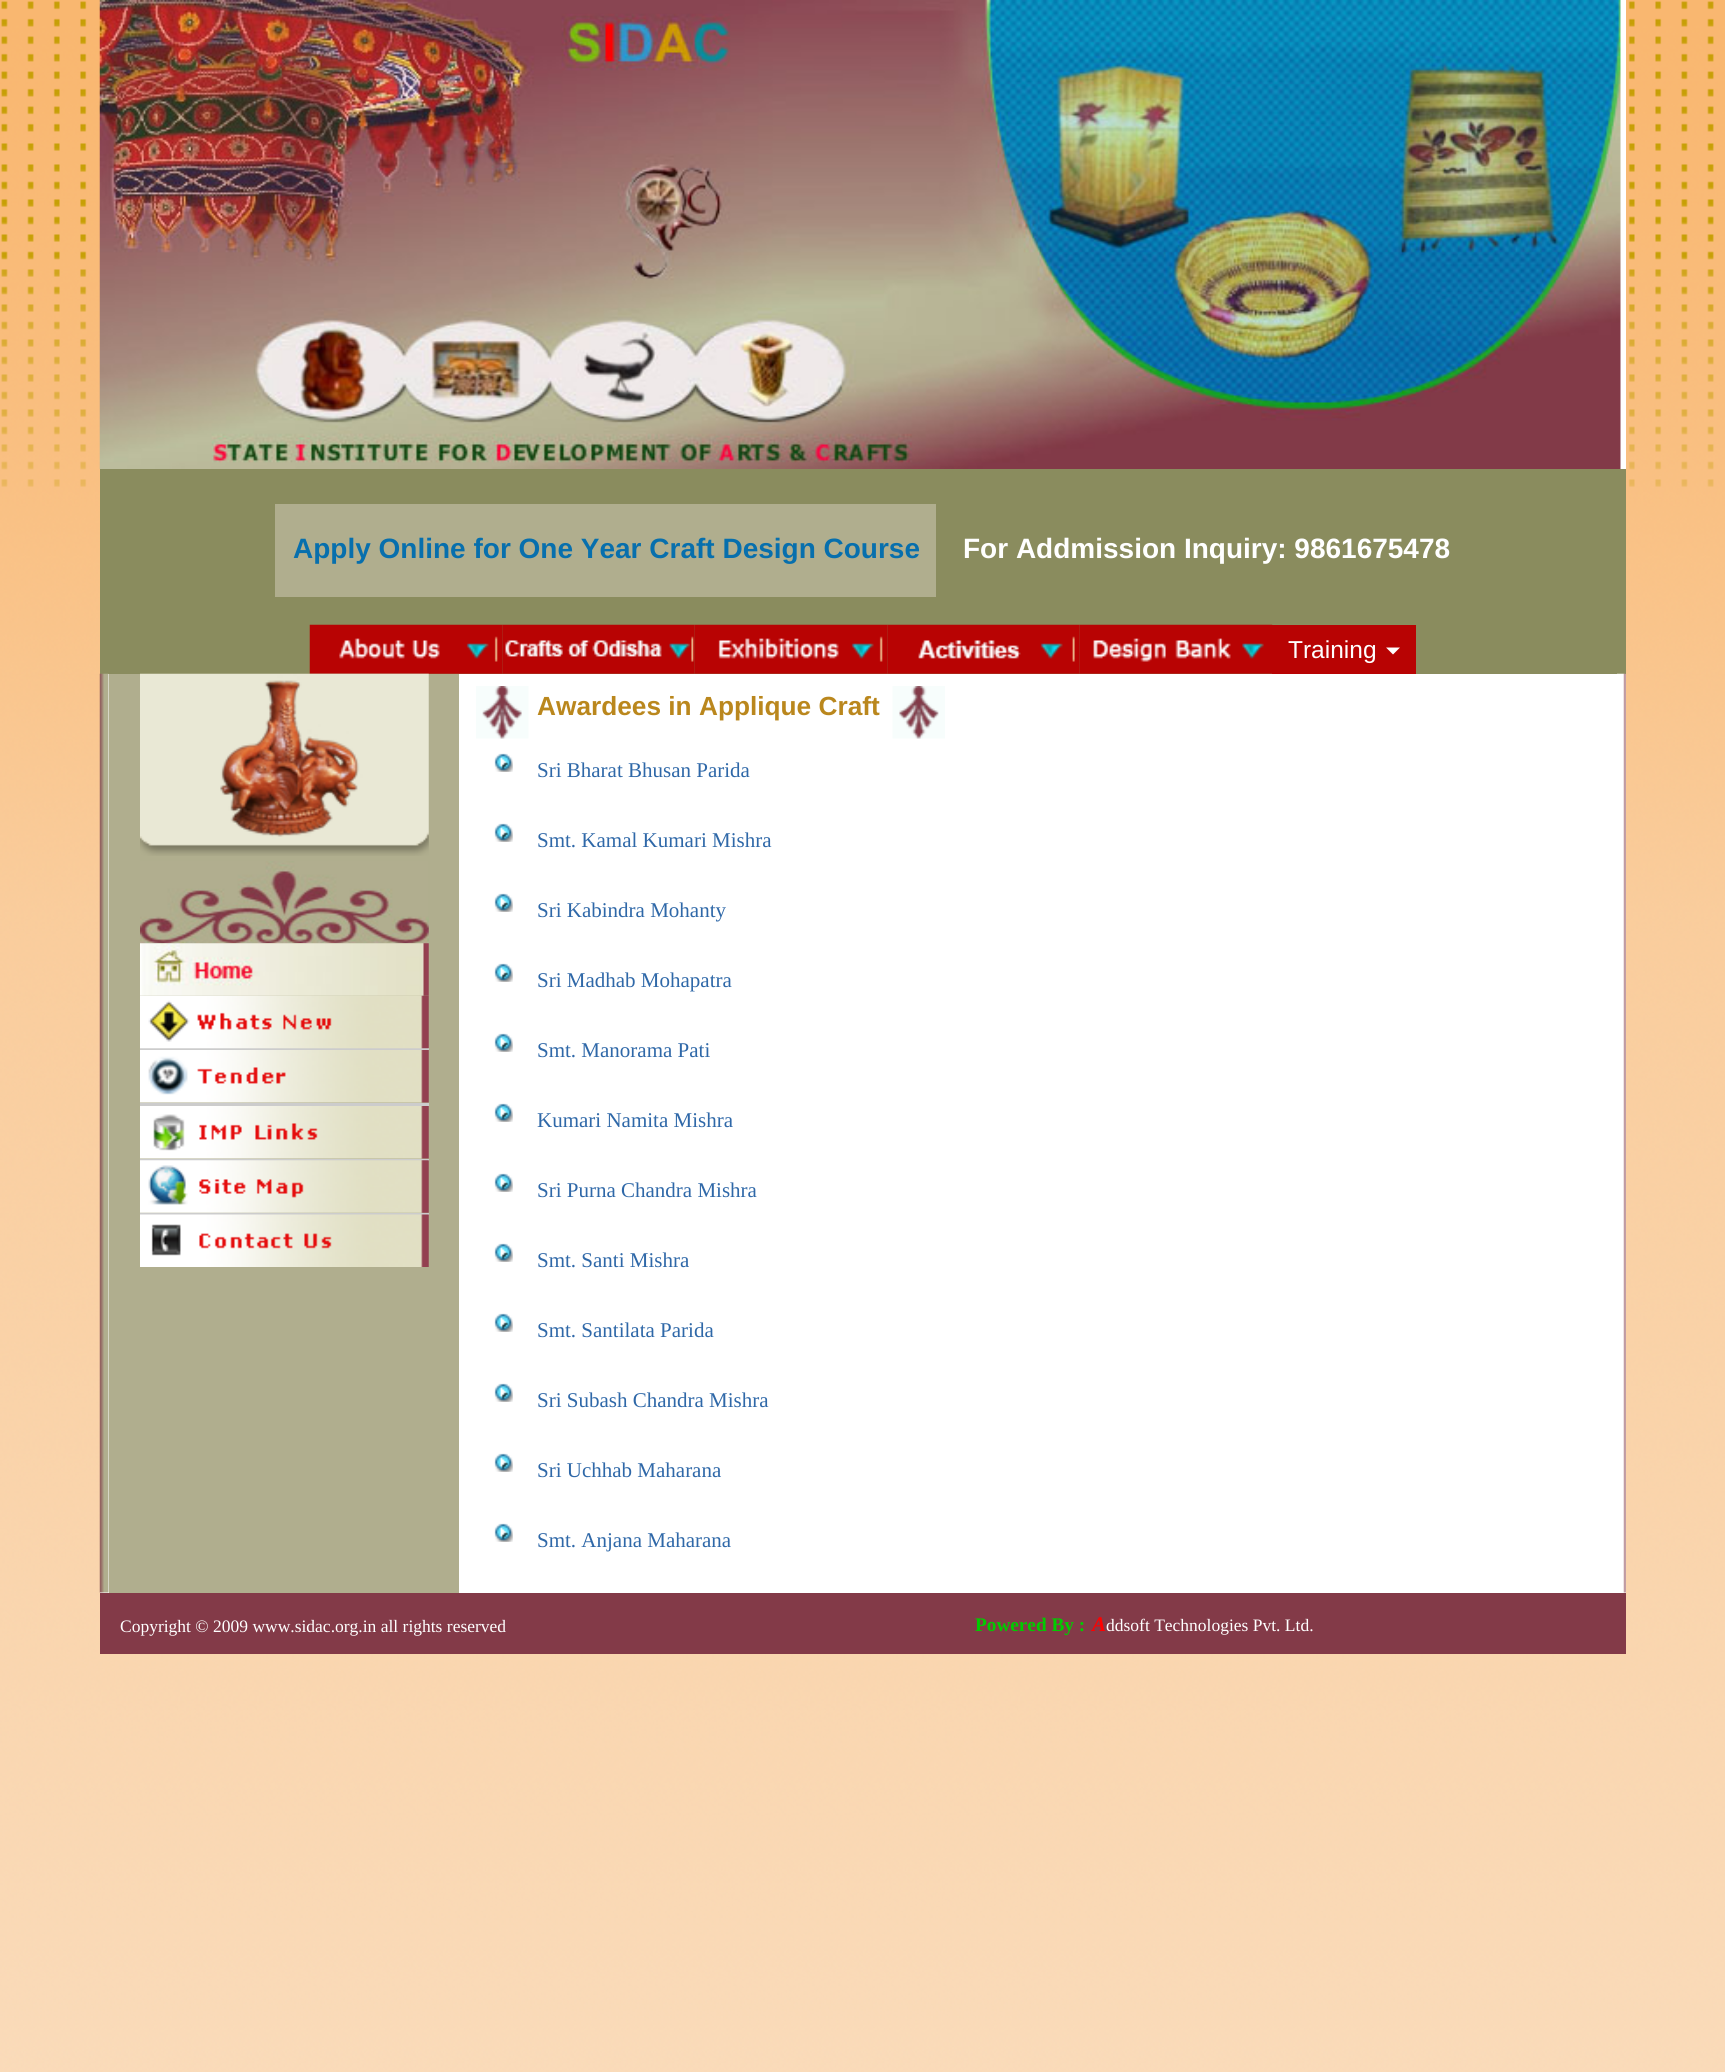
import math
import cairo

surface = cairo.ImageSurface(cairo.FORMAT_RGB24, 1725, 2072)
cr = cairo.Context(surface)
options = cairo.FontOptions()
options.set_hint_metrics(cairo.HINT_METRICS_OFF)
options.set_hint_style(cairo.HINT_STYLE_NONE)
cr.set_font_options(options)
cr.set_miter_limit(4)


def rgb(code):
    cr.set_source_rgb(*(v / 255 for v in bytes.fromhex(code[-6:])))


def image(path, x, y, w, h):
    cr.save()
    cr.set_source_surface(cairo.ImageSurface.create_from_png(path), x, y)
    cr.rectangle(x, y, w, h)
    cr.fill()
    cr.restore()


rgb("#ffffff")
cr.paint()
image("img/1.png", 0, 0, 1725, 2072)
rgb("#ffffff")
cr.rectangle(100, 0, 1526, 1593)
cr.fill()
image("img/2.png", 99, 0, 1522, 469)
rgb("#8a8c5e")
cr.rectangle(100, 469, 1526, 205)
cr.fill()
rgb("#b0ae8e")
cr.rectangle(275, 504, 661, 93)
cr.fill()
image("img/3.png", 309, 624, 194, 50)
image("img/4.png", 502, 624, 193, 50)
image("img/5.png", 694, 624, 194, 50)
image("img/6.png", 887, 624, 193, 50)
image("img/7.png", 1079, 624, 194, 50)
rgb("#b80303")
cr.rectangle(1272, 625, 144, 49)
cr.fill()
rgb("#ffffff")
cr.new_path()
cr.move_to(1386, 647.5)
cr.line_to(1400, 647.5)
cr.line_to(1393, 654.5)
cr.close_path()
cr.fill()
image("img/8.png", 99, 673, 10, 920)
rgb("#b0ae8e")
cr.rectangle(109, 674, 350, 919)
cr.fill()
image("img/9.png", 140, 673, 289, 183)
image("img/10.png", 140, 861, 289, 83)
image("img/11.png", 140, 943, 289, 53)
rgb("#cccccc")
cr.rectangle(140, 1048, 289, 2)
cr.fill()
image("img/12.png", 140, 995, 289, 54)
image("img/13.png", 140, 1050, 289, 53)
cr.rectangle(140, 1103, 289, 3)
cr.fill()
image("img/14.png", 140, 1106, 289, 53)
cr.rectangle(140, 1159, 289, 2)
cr.fill()
image("img/15.png", 140, 1160, 289, 53)
cr.rectangle(140, 1213, 289, 2)
cr.fill()
image("img/16.png", 140, 1214, 289, 53)
image("img/17.png", 476, 686, 53, 53)
image("img/18.png", 892, 686, 53, 53)
image("img/19.png", 494, 753, 19, 19)
image("img/19.png", 494, 823, 19, 19)
image("img/19.png", 494, 893, 19, 19)
image("img/19.png", 494, 963, 19, 19)
image("img/19.png", 494, 1033, 19, 19)
image("img/19.png", 494, 1103, 19, 19)
image("img/19.png", 494, 1173, 19, 19)
image("img/19.png", 494, 1243, 19, 19)
image("img/19.png", 494, 1313, 19, 19)
image("img/19.png", 494, 1383, 19, 19)
image("img/19.png", 494, 1453, 19, 19)
image("img/19.png", 494, 1523, 19, 19)
image("img/20.png", 1617, 673, 9, 920)
rgb("#833a48")
cr.rectangle(100, 1593, 1526, 61)
cr.fill()
cr.select_font_face("Liberation Sans", cairo.FONT_SLANT_NORMAL, cairo.FONT_WEIGHT_BOLD)
cr.set_font_size(28)
rgb("#076fad")
cr.move_to(293, 558)
cr.show_text("Apply Online for One Year Craft Design Course")
rgb("#ffffff")
cr.move_to(963, 558)
cr.show_text("For Addmission Inquiry: 9861675478")
cr.select_font_face("Liberation Sans")
cr.set_font_size(24.5)
cr.move_to(1288, 658)
cr.show_text("Training")
cr.select_font_face("Liberation Sans", cairo.FONT_SLANT_NORMAL, cairo.FONT_WEIGHT_BOLD)
cr.set_font_size(26.25)
rgb("#ba871d")
cr.move_to(537, 715)
cr.show_text("Awardees in Applique Craft")
cr.select_font_face("Liberation Serif")
cr.set_font_size(21)
rgb("#2f68a8")
for x, y, s in [
    (537, 777, "Sri Bharat Bhusan Parida"),
    (537, 847, "Smt. Kamal Kumari Mishra"),
    (537, 917, "Sri Kabindra Mohanty"),
    (537, 987, "Sri Madhab Mohapatra"),
    (537, 1057, "Smt. Manorama Pati"),
    (537, 1127, "Kumari Namita Mishra"),
    (537, 1197, "Sri Purna Chandra Mishra"),
    (537, 1267, "Smt. Santi Mishra"),
    (537, 1337, "Smt. Santilata Parida"),
    (537, 1407, "Sri Subash Chandra Mishra"),
    (537, 1477, "Sri Uchhab Maharana"),
    (537, 1547, "Smt. Anjana Maharana"),
]:
    cr.move_to(x, y)
    cr.show_text(s)
cr.set_font_size(17.5)
rgb("#ffffff")
cr.move_to(120, 1632)
cr.show_text("Copyright © 2009 www.sidac.org.in all rights reserved")
cr.select_font_face("Liberation Serif", cairo.FONT_SLANT_NORMAL, cairo.FONT_WEIGHT_BOLD)
cr.set_font_size(19.25)
rgb("#00cc00")
cr.move_to(975, 1631)
cr.show_text("Powered By :")
cr.select_font_face("Liberation Serif", cairo.FONT_SLANT_ITALIC, cairo.FONT_WEIGHT_BOLD)
cr.set_font_size(21)
rgb("#ff0000")
cr.move_to(1092, 1631)
cr.show_text("A")
cr.select_font_face("Liberation Serif")
cr.set_font_size(17.5)
rgb("#ffffff")
cr.move_to(1106, 1631)
cr.show_text("ddsoft Technologies Pvt. Ltd.")
surface.write_to_png("page.png")
